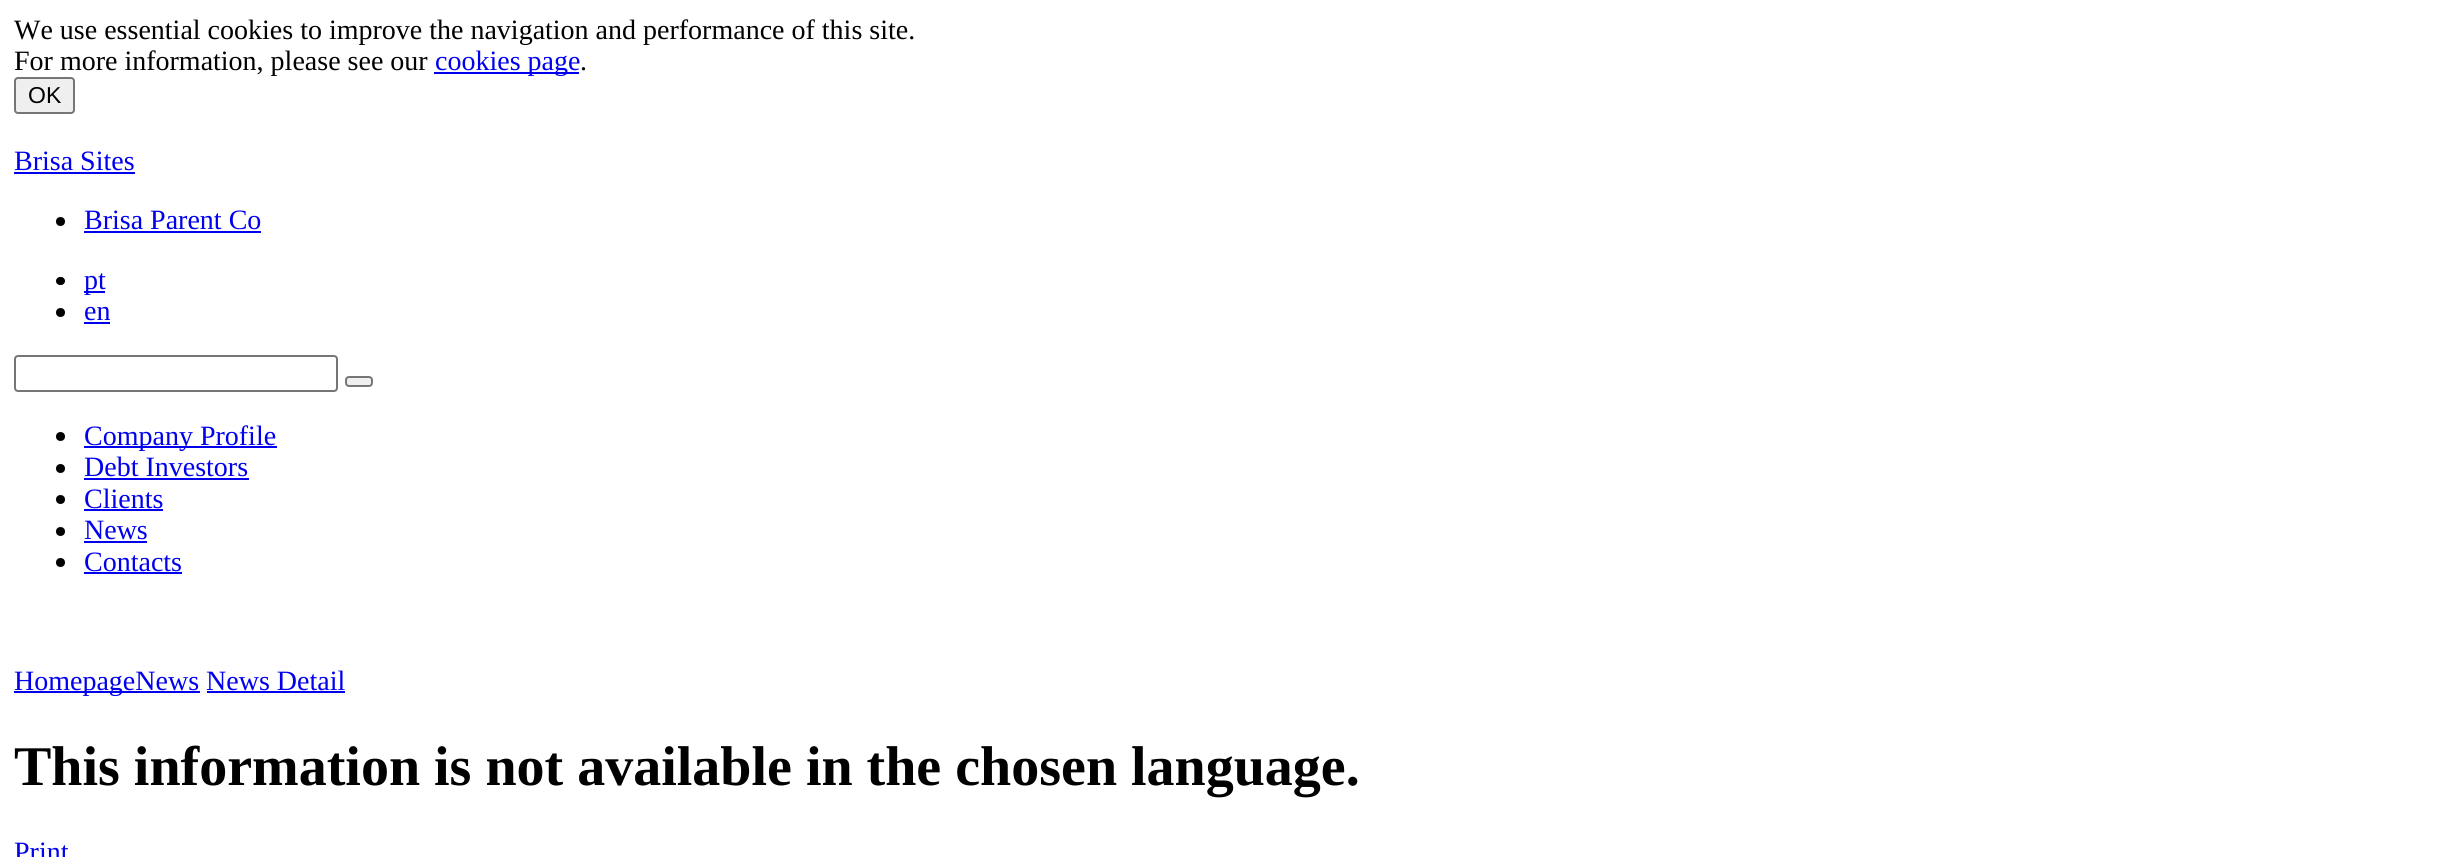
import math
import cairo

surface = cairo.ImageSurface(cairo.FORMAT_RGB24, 2463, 857)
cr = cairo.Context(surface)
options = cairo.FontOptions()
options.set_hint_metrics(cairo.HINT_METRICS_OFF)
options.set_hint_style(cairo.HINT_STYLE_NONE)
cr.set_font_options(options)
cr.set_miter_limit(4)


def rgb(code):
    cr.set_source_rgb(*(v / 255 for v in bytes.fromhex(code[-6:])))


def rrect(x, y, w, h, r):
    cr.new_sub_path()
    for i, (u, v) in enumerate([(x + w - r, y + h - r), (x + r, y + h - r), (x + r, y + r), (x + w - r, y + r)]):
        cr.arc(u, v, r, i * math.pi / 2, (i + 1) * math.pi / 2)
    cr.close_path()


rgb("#ffffff")
cr.paint()
rgb("#0000ee")
cr.rectangle(434, 72, 145, 2)
cr.fill()
rgb("#efefef")
rrect(15, 78, 59, 35, 3)
cr.fill_preserve()
rgb("#767676")
cr.stroke()
rgb("#0000ee")
cr.rectangle(14, 172, 121, 2)
cr.fill()
rgb("#000000")
cr.arc(60.5, 221.5, 4.5, 0, 2 * math.pi)
cr.fill()
rgb("#0000ee")
cr.rectangle(84, 231, 177, 2)
cr.fill()
rgb("#000000")
rrect(56, 277, 9, 8, 4)
cr.fill()
rgb("#0000ee")
cr.rectangle(84, 291, 21, 2)
cr.fill()
rgb("#000000")
cr.arc(60.5, 312.5, 4.5, 0, 2 * math.pi)
cr.fill()
rgb("#0000ee")
cr.rectangle(84, 322, 26, 2)
cr.fill()
rrect(15, 356, 322, 35, 3)
rgb("#767676")
cr.stroke()
rgb("#efefef")
rrect(346, 377, 26, 9, 3)
cr.fill_preserve()
rgb("#767676")
cr.stroke()
rgb("#000000")
cr.arc(60.5, 436.5, 4.5, 0, 2 * math.pi)
cr.fill()
rgb("#0000ee")
cr.rectangle(84, 446, 193, 2)
cr.fill()
rgb("#000000")
cr.arc(60.5, 468.5, 4.5, 0, 2 * math.pi)
cr.fill()
rgb("#0000ee")
cr.rectangle(84, 478, 165, 2)
cr.fill()
rgb("#000000")
cr.arc(60.5, 499.5, 4.5, 0, 2 * math.pi)
cr.fill()
rgb("#0000ee")
cr.rectangle(84, 509, 79, 2)
cr.fill()
rgb("#000000")
cr.arc(60.5, 531.5, 4.5, 0, 2 * math.pi)
cr.fill()
rgb("#0000ee")
cr.rectangle(84, 541, 63, 2)
cr.fill()
rgb("#000000")
cr.arc(60.5, 562.5, 4.5, 0, 2 * math.pi)
cr.fill()
for x, y, w, h, color in [
    (84, 572, 98, 2, "#0000ee"),
    (14, 691, 186, 2, "#0000ee"),
    (207, 691, 138, 2, "#0000ee"),
]:
    rgb(color)
    cr.rectangle(x, y, w, h)
    cr.fill()
cr.select_font_face("Liberation Serif")
cr.set_font_size(28)
rgb("#000000")
cr.move_to(14, 39)
cr.show_text("We use essential cookies to improve the navigation and performance of this site.")
cr.move_to(14, 70)
cr.show_text("For more information, please see our")
rgb("#0000ee")
cr.move_to(435, 70)
cr.show_text("cookies page")
rgb("#000000")
cr.move_to(580, 70)
cr.show_text(".")
cr.select_font_face("Liberation Sans")
cr.set_font_size(23)
cr.move_to(28, 103)
cr.show_text("OK")
cr.select_font_face("Liberation Serif")
cr.set_font_size(28)
rgb("#0000ee")
for x, y, s in [
    (14, 170, "Brisa Sites"),
    (84, 229, "Brisa Parent Co"),
    (84, 289, "pt"),
    (84, 320, "en"),
    (84, 445, "Company Profile"),
    (84, 476, "Debt Investors"),
    (84, 508, "Clients"),
    (84, 539, "News"),
    (84, 571, "Contacts"),
    (14, 690, "HomepageNews News Detail"),
]:
    cr.move_to(x, y)
    cr.show_text(s)
cr.select_font_face("Liberation Serif", cairo.FONT_SLANT_NORMAL, cairo.FONT_WEIGHT_BOLD)
cr.set_font_size(56)
rgb("#000000")
cr.move_to(14, 785)
cr.show_text("This information is not available in the chosen language.")
cr.select_font_face("Liberation Serif")
cr.set_font_size(28)
rgb("#0000ee")
cr.move_to(14, 861)
cr.show_text("Print")
surface.write_to_png("page.png")
